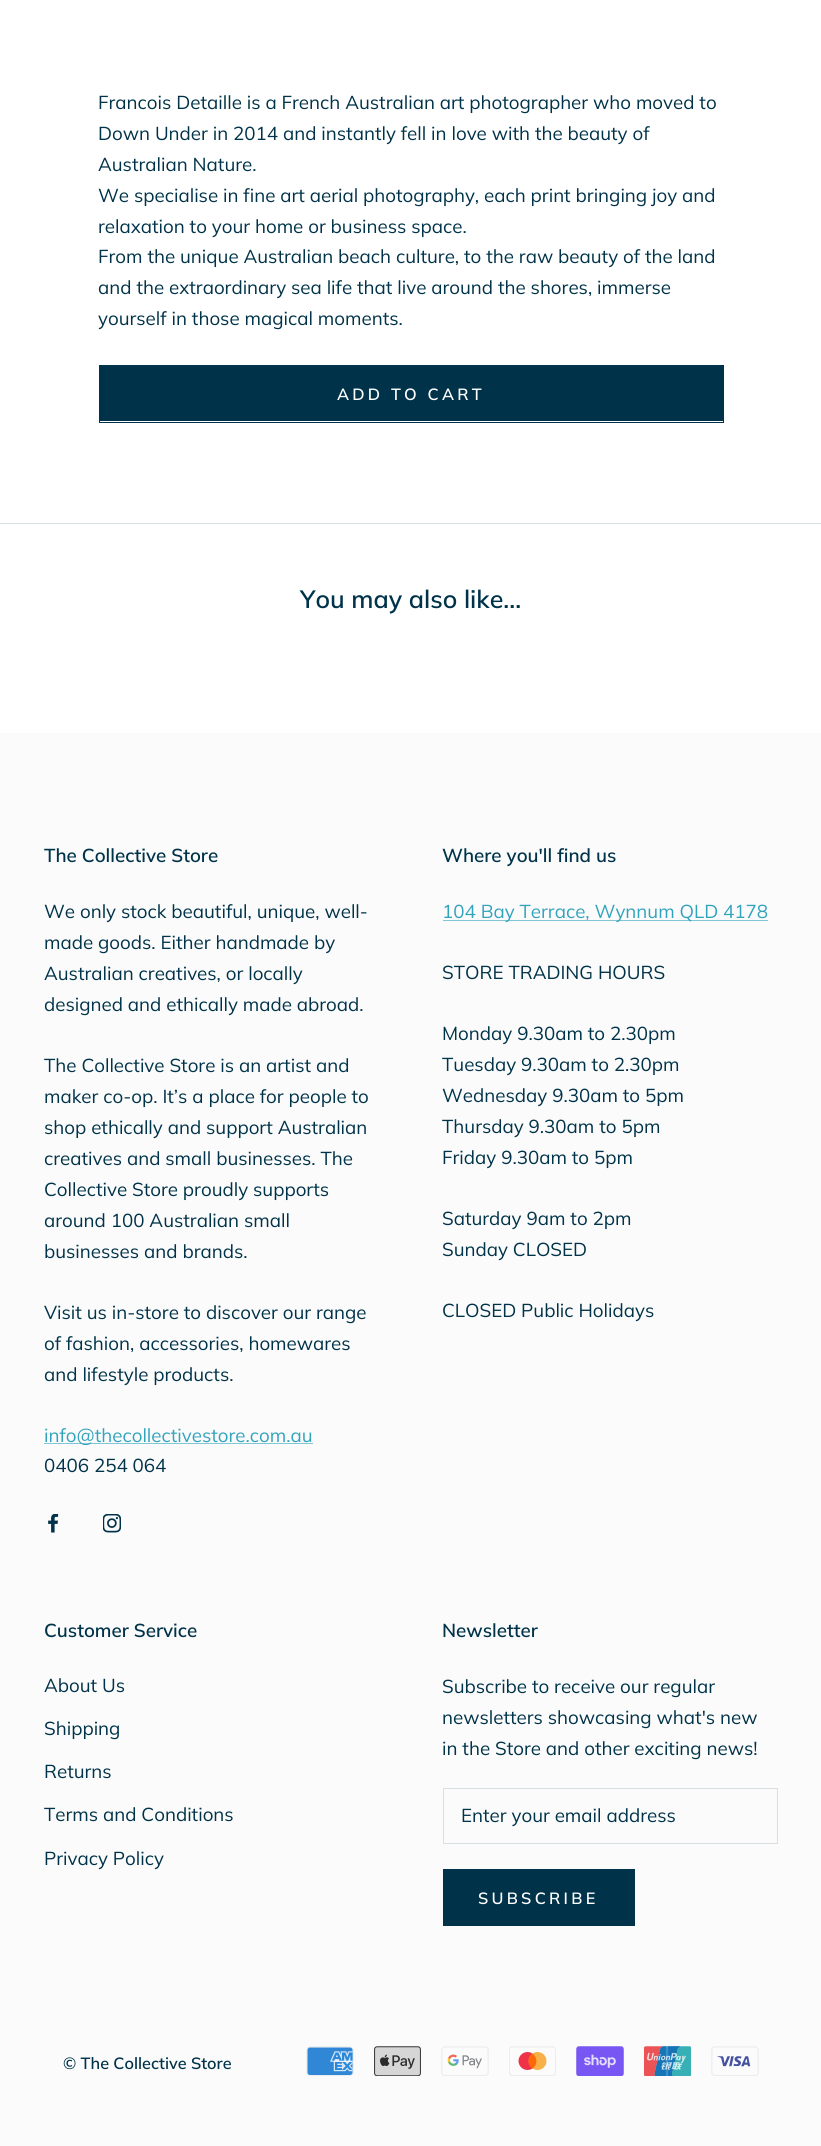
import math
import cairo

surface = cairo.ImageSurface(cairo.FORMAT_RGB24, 821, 2146)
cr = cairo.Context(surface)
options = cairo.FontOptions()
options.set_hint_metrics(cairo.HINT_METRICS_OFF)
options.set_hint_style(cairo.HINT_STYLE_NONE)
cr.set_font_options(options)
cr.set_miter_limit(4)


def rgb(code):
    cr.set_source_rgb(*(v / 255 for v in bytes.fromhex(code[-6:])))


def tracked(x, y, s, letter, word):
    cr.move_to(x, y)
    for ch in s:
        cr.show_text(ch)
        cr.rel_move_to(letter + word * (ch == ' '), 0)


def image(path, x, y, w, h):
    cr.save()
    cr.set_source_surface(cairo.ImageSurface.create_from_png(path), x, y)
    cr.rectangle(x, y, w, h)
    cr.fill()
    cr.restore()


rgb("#ffffff")
cr.paint()
cr.rectangle(99.5, 365.5, 624, 57)
rgb("#003349")
cr.set_line_width(1)
cr.stroke()
for x, y, w, h, color in [
    (100, 366, 623, 55, "#003349"),
    (0, 523, 821, 1, "#d9e0e4"),
    (0, 733, 821, 1413, "#fbfbfb"),
    (44, 1443, 269, 1, "#82c6d6"),
]:
    rgb(color)
    cr.rectangle(x, y, w, h)
    cr.fill()
image("img/1.png", 48, 1514, 11, 19)
image("img/2.png", 103, 1514, 18, 19)
cr.rectangle(443, 920, 325, 1)
cr.fill()
cr.rectangle(443.5, 1788.5, 334, 55)
rgb("#d9e0e4")
cr.stroke()
cr.rectangle(443.5, 1869.5, 191, 56)
rgb("#003349")
cr.stroke()
cr.rectangle(444, 1870, 190, 55)
cr.fill()
image("img/3.png", 306, 2046, 48, 30)
image("img/4.png", 374, 2046, 47, 30)
image("img/5.png", 441, 2046, 48, 30)
image("img/6.png", 509, 2046, 47, 30)
image("img/7.png", 576, 2046, 48, 30)
image("img/8.png", 644, 2046, 47, 30)
image("img/9.png", 711, 2046, 48, 30)
cr.select_font_face("Muli")
cr.set_font_size(18.75)
for x, y, s in [
    (98, 109, "Francois Detaille is a French Australian art photographer who moved to"),
    (98, 140, "Down Under in 2014 and instantly fell in love with the beauty of"),
    (98, 171, "Australian Nature."),
    (98, 202, "We specialise in fine art aerial photography, each print bringing joy and"),
    (98, 233, "relaxation to your home or business space."),
    (98, 263, "From the unique Australian beach culture, to the raw beauty of the land"),
    (98, 294, "and the extraordinary sea life that live around the shores, immerse"),
    (98, 325, "yourself in those magical moments."),
]:
    cr.move_to(x, y)
    cr.show_text(s)
cr.select_font_face("Muli SemiBold")
cr.set_font_size(16.25)
rgb("#ffffff")
tracked(337, 400, "ADD TO CART", 3.25, 0)
cr.set_font_size(25)
rgb("#003349")
cr.move_to(300, 608)
cr.show_text("You may also like...")
cr.set_font_size(18.75)
cr.move_to(44, 862)
cr.show_text("The Collective Store")
cr.select_font_face("Muli")
for x, y, s in [
    (44, 918, "We only stock beautiful, unique, well-"),
    (44, 949, "made goods. Either handmade by"),
    (44, 980, "Australian creatives, or locally"),
    (44, 1011, "designed and ethically made abroad."),
    (44, 1072, "The Collective Store is an artist and"),
    (44, 1103, "maker co-op. It’s a place for people to"),
    (44, 1134, "shop ethically and support Australian"),
    (44, 1165, "creatives and small businesses. The"),
    (44, 1196, "Collective Store proudly supports"),
    (44, 1227, "around 100 Australian small"),
    (44, 1258, "businesses and brands."),
    (44, 1319, "Visit us in-store to discover our range"),
    (44, 1350, "of fashion, accessories, homewares"),
    (44, 1381, "and lifestyle products."),
]:
    cr.move_to(x, y)
    cr.show_text(s)
rgb("#31a3bd")
cr.move_to(44, 1442)
cr.show_text("info@thecollectivestore.com.au")
rgb("#003349")
cr.move_to(44, 1472)
cr.show_text("0406 254 064")
cr.select_font_face("Muli SemiBold")
cr.move_to(442, 862)
cr.show_text("Where you'll find us")
cr.select_font_face("Muli")
rgb("#31a3bd")
cr.move_to(442, 918)
cr.show_text("104 Bay Terrace, Wynnum QLD 4178")
rgb("#003349")
for x, y, s in [
    (442, 979, "STORE TRADING HOURS"),
    (442, 1040, "Monday 9.30am to 2.30pm"),
    (442, 1071, "Tuesday 9.30am to 2.30pm"),
    (442, 1102, "Wednesday 9.30am to 5pm"),
    (442, 1133, "Thursday 9.30am to 5pm"),
    (442, 1164, "Friday 9.30am to 5pm"),
    (442, 1225, "Saturday 9am to 2pm"),
    (442, 1256, "Sunday CLOSED"),
    (442, 1317, "CLOSED Public Holidays"),
]:
    cr.move_to(x, y)
    cr.show_text(s)
cr.select_font_face("Muli SemiBold")
cr.move_to(44, 1637)
cr.show_text("Customer Service")
cr.select_font_face("Muli")
for x, y, s in [
    (44, 1692, "About Us"),
    (44, 1735, "Shipping"),
    (44, 1778, "Returns"),
    (44, 1821, "Terms and Conditions"),
    (44, 1865, "Privacy Policy"),
]:
    cr.move_to(x, y)
    cr.show_text(s)
cr.select_font_face("Muli SemiBold")
cr.move_to(442, 1637)
cr.show_text("Newsletter")
cr.select_font_face("Muli")
for x, y, s in [
    (442, 1693, "Subscribe to receive our regular"),
    (442, 1724, "newsletters showcasing what's new"),
    (442, 1755, "in the Store and other exciting news!"),
    (461, 1822, "Enter your email address"),
]:
    cr.move_to(x, y)
    cr.show_text(s)
cr.select_font_face("Muli SemiBold")
cr.set_font_size(16.25)
rgb("#ffffff")
tracked(478, 1904, "SUBSCRIBE", 3.25, 0)
rgb("#003349")
cr.move_to(63, 2069)
cr.show_text("© The Collective Store")
surface.write_to_png("page.png")
